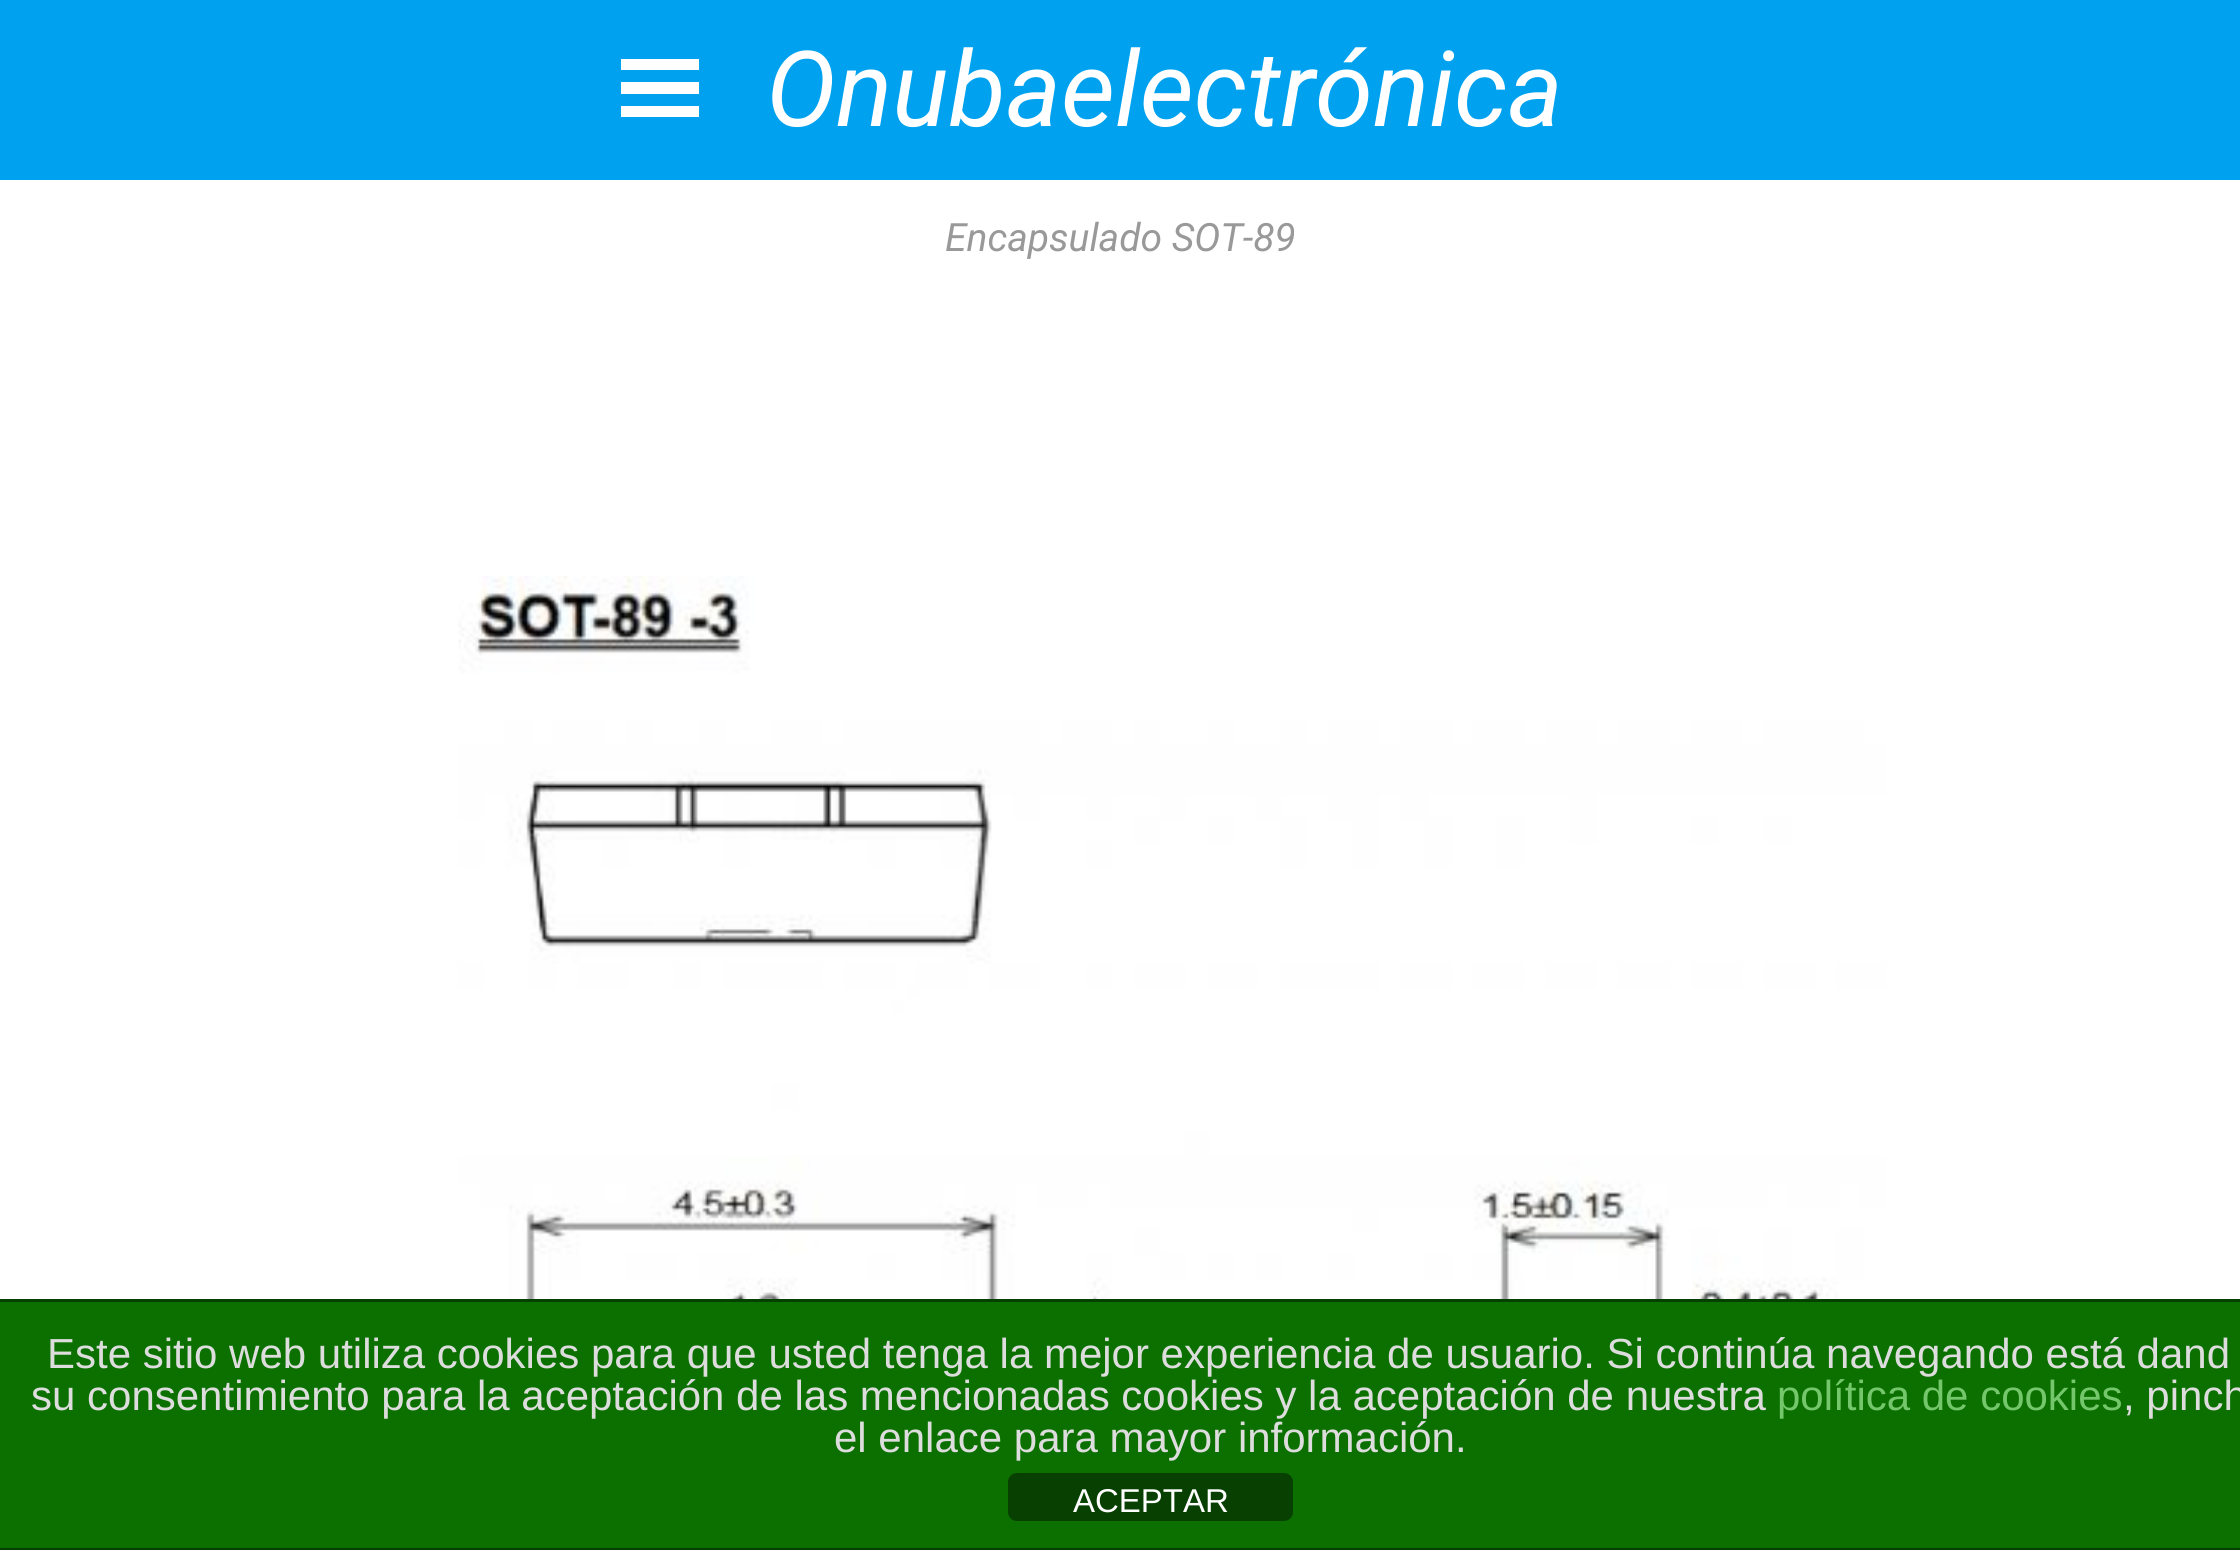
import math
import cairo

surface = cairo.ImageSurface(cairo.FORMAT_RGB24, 2240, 1550)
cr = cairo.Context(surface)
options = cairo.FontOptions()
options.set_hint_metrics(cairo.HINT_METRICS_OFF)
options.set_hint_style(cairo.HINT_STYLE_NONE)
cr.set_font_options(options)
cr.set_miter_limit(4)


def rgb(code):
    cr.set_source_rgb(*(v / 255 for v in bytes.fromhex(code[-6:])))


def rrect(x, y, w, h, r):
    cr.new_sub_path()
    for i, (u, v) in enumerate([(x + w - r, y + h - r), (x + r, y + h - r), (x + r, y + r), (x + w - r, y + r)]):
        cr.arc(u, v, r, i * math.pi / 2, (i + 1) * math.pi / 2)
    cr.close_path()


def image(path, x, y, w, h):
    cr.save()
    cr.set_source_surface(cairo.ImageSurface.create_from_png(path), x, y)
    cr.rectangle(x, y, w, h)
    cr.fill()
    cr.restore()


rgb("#ffffff")
cr.paint()
rgb("#00a2f0")
cr.rectangle(0, 0, 2240, 180)
cr.fill()
rgb("#ffffff")
cr.new_path()
cr.move_to(699, 70)
cr.line_to(699, 59)
cr.line_to(621, 59)
cr.line_to(621, 70)
cr.close_path()
cr.move_to(699, 94)
cr.line_to(699, 82)
cr.line_to(621, 82)
cr.line_to(621, 94)
cr.close_path()
cr.move_to(699, 117)
cr.line_to(699, 106)
cr.line_to(621, 106)
cr.line_to(621, 117)
cr.close_path()
cr.fill()
image("img/1.png", 458, 576, 1428, 723)
for x, y, w, h, color in [
    (0, 1302, 2240, 246, "#0b7000"),
    (0, 1299, 2240, 3, "#064000"),
    (0, 1548, 2240, 2, "#064000"),
]:
    rgb(color)
    cr.rectangle(x, y, w, h)
    cr.fill()
rgb("#074000")
rrect(1008, 1473, 285, 48, 9)
cr.fill()
cr.select_font_face("Roboto", cairo.FONT_SLANT_ITALIC)
cr.set_font_size(105)
rgb("#ffffff")
cr.move_to(766, 126)
cr.show_text("Onubaelectrónica")
cr.set_font_size(39)
rgb("#999999")
cr.move_to(945, 251)
cr.show_text("Encapsulado SOT-89")
cr.select_font_face("Liberation Sans")
cr.set_font_size(42)
rgb("#dddddd")
cr.move_to(47, 1368)
cr.show_text("Este sitio web utiliza cookies para que usted tenga la mejor experiencia de usuario. Si continúa navegando está dand")
cr.move_to(31, 1410)
cr.show_text("su consentimiento para la aceptación de las mencionadas cookies y la aceptación de nuestra")
rgb("#75c76c")
cr.move_to(1777, 1410)
cr.show_text("política de cookies")
rgb("#dddddd")
cr.move_to(2123, 1410)
cr.show_text(", pinch")
cr.move_to(834, 1452)
cr.show_text("el enlace para mayor información.")
cr.set_font_size(33)
rgb("#ffffff")
cr.move_to(1073, 1512)
cr.show_text("ACEPTAR")
surface.write_to_png("page.png")
